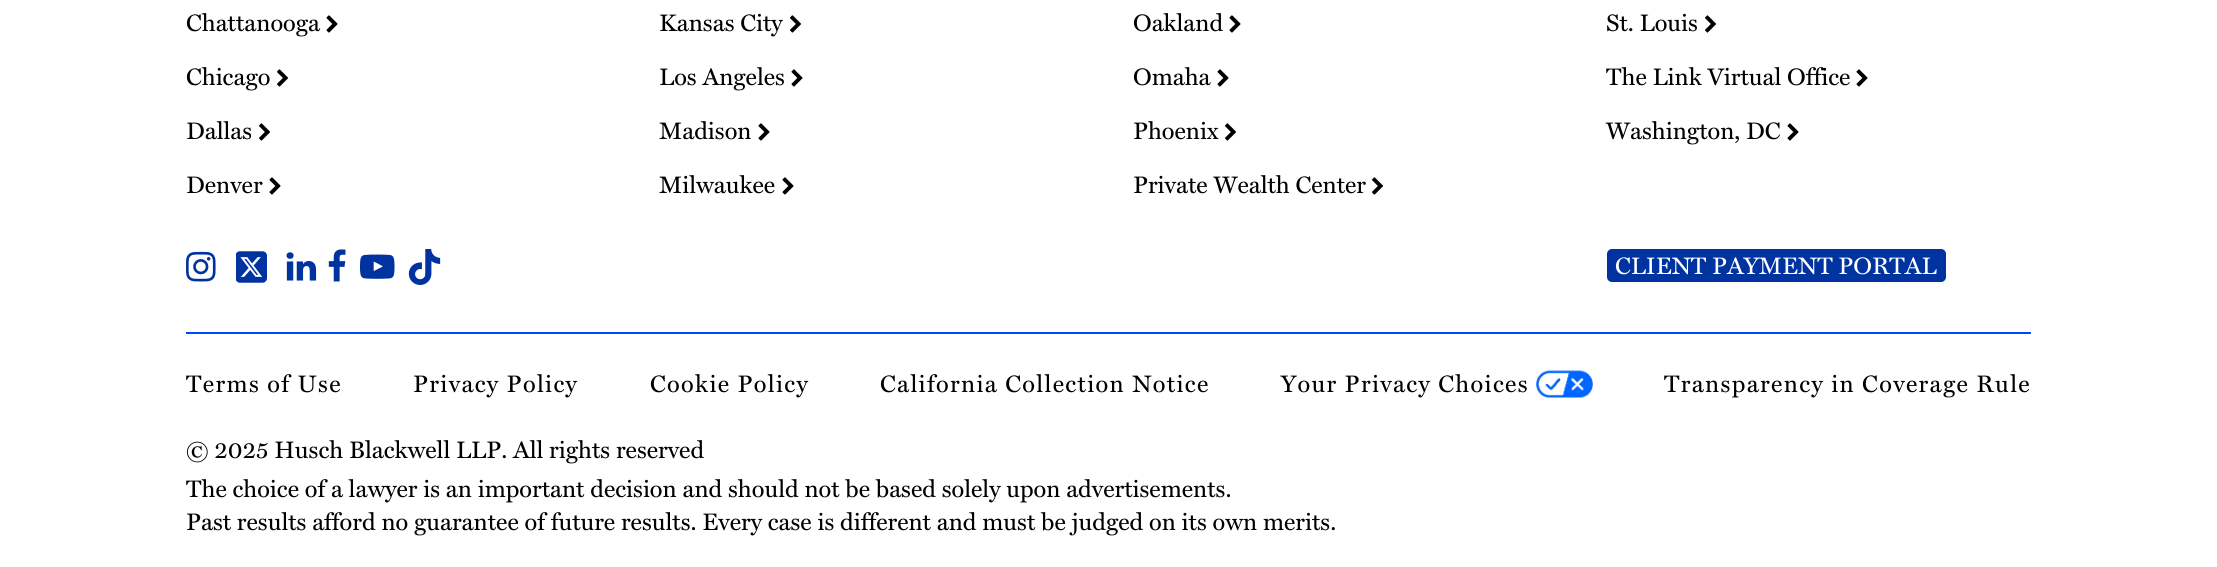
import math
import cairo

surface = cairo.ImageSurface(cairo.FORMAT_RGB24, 2217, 567)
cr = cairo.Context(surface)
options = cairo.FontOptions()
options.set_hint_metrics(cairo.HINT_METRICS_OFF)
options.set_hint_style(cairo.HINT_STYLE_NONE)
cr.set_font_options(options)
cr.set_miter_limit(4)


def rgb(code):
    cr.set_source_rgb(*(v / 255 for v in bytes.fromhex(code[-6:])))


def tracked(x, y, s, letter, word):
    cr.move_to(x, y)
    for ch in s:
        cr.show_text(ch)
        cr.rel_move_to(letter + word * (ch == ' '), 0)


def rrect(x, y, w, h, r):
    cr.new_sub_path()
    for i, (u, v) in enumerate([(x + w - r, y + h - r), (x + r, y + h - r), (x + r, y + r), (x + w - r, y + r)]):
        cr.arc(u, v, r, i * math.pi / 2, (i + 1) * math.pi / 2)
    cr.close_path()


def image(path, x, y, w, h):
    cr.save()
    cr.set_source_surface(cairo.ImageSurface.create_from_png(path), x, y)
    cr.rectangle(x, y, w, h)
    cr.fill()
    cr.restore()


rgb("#ffffff")
cr.paint()
rgb("#0047ff")
cr.rectangle(186, 332, 1845, 2)
cr.fill()
image("img/1.png", 326, 15, 12, 18)
image("img/2.png", 277, 69, 11, 18)
image("img/2.png", 259, 123, 11, 18)
image("img/1.png", 269, 177, 12, 18)
image("img/2.png", 790, 15, 11, 18)
image("img/1.png", 791, 69, 12, 18)
image("img/1.png", 758, 123, 12, 18)
image("img/1.png", 782, 177, 12, 18)
image("img/1.png", 1229, 15, 12, 18)
image("img/1.png", 1217, 69, 12, 18)
image("img/2.png", 1225, 123, 11, 18)
image("img/2.png", 1372, 177, 11, 18)
image("img/2.png", 1705, 15, 11, 18)
image("img/1.png", 1856, 69, 12, 18)
image("img/1.png", 1787, 123, 12, 18)
image("img/3.png", 186, 251, 30, 31)
image("img/4.png", 236, 251, 31, 32)
image("img/5.png", 286, 252, 31, 29)
image("img/6.png", 328, 249, 18, 33)
image("img/7.png", 360, 254, 35, 25)
image("img/8.png", 408, 249, 33, 36)
rgb("#0033a0")
rrect(1607, 249, 339, 33, 5)
cr.fill()
image("img/9.png", 1536, 370, 57, 28)
cr.select_font_face("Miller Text")
cr.set_font_size(24)
rgb("#000000")
for x, y, s in [
    (186, 31, "Chattanooga"),
    (186, 85, "Chicago"),
    (186, 139, "Dallas"),
    (186, 193, "Denver"),
    (659, 31, "Kansas City"),
    (659, 85, "Los Angeles"),
    (659, 139, "Madison"),
    (659, 193, "Milwaukee"),
    (1133, 31, "Oakland"),
    (1133, 85, "Omaha"),
    (1133, 139, "Phoenix"),
    (1133, 193, "Private Wealth Center"),
    (1606, 31, "St. Louis"),
    (1606, 85, "The Link Virtual Office"),
    (1606, 139, "Washington, DC"),
]:
    cr.move_to(x, y)
    cr.show_text(s)
rgb("#ffffff")
cr.move_to(1615, 274)
cr.show_text("CLIENT PAYMENT PORTAL")
rgb("#000000")
for x, y, s in [
    (186, 392, "Terms of Use"),
    (413, 392, "Privacy Policy"),
    (650, 392, "Cookie Policy"),
    (880, 392, "California Collection Notice"),
    (1281, 392, "Your Privacy Choices"),
    (1664, 392, "Transparency in Coverage Rule"),
]:
    tracked(x, y, s, 1.35, 0)
for x, y, s in [
    (186, 458, "© 2025 Husch Blackwell LLP. All rights reserved"),
    (186, 497, "The choice of a lawyer is an important decision and should not be based solely upon advertisements."),
    (186, 530, "Past results afford no guarantee of future results. Every case is different and must be judged on its own merits."),
]:
    cr.move_to(x, y)
    cr.show_text(s)
surface.write_to_png("page.png")
